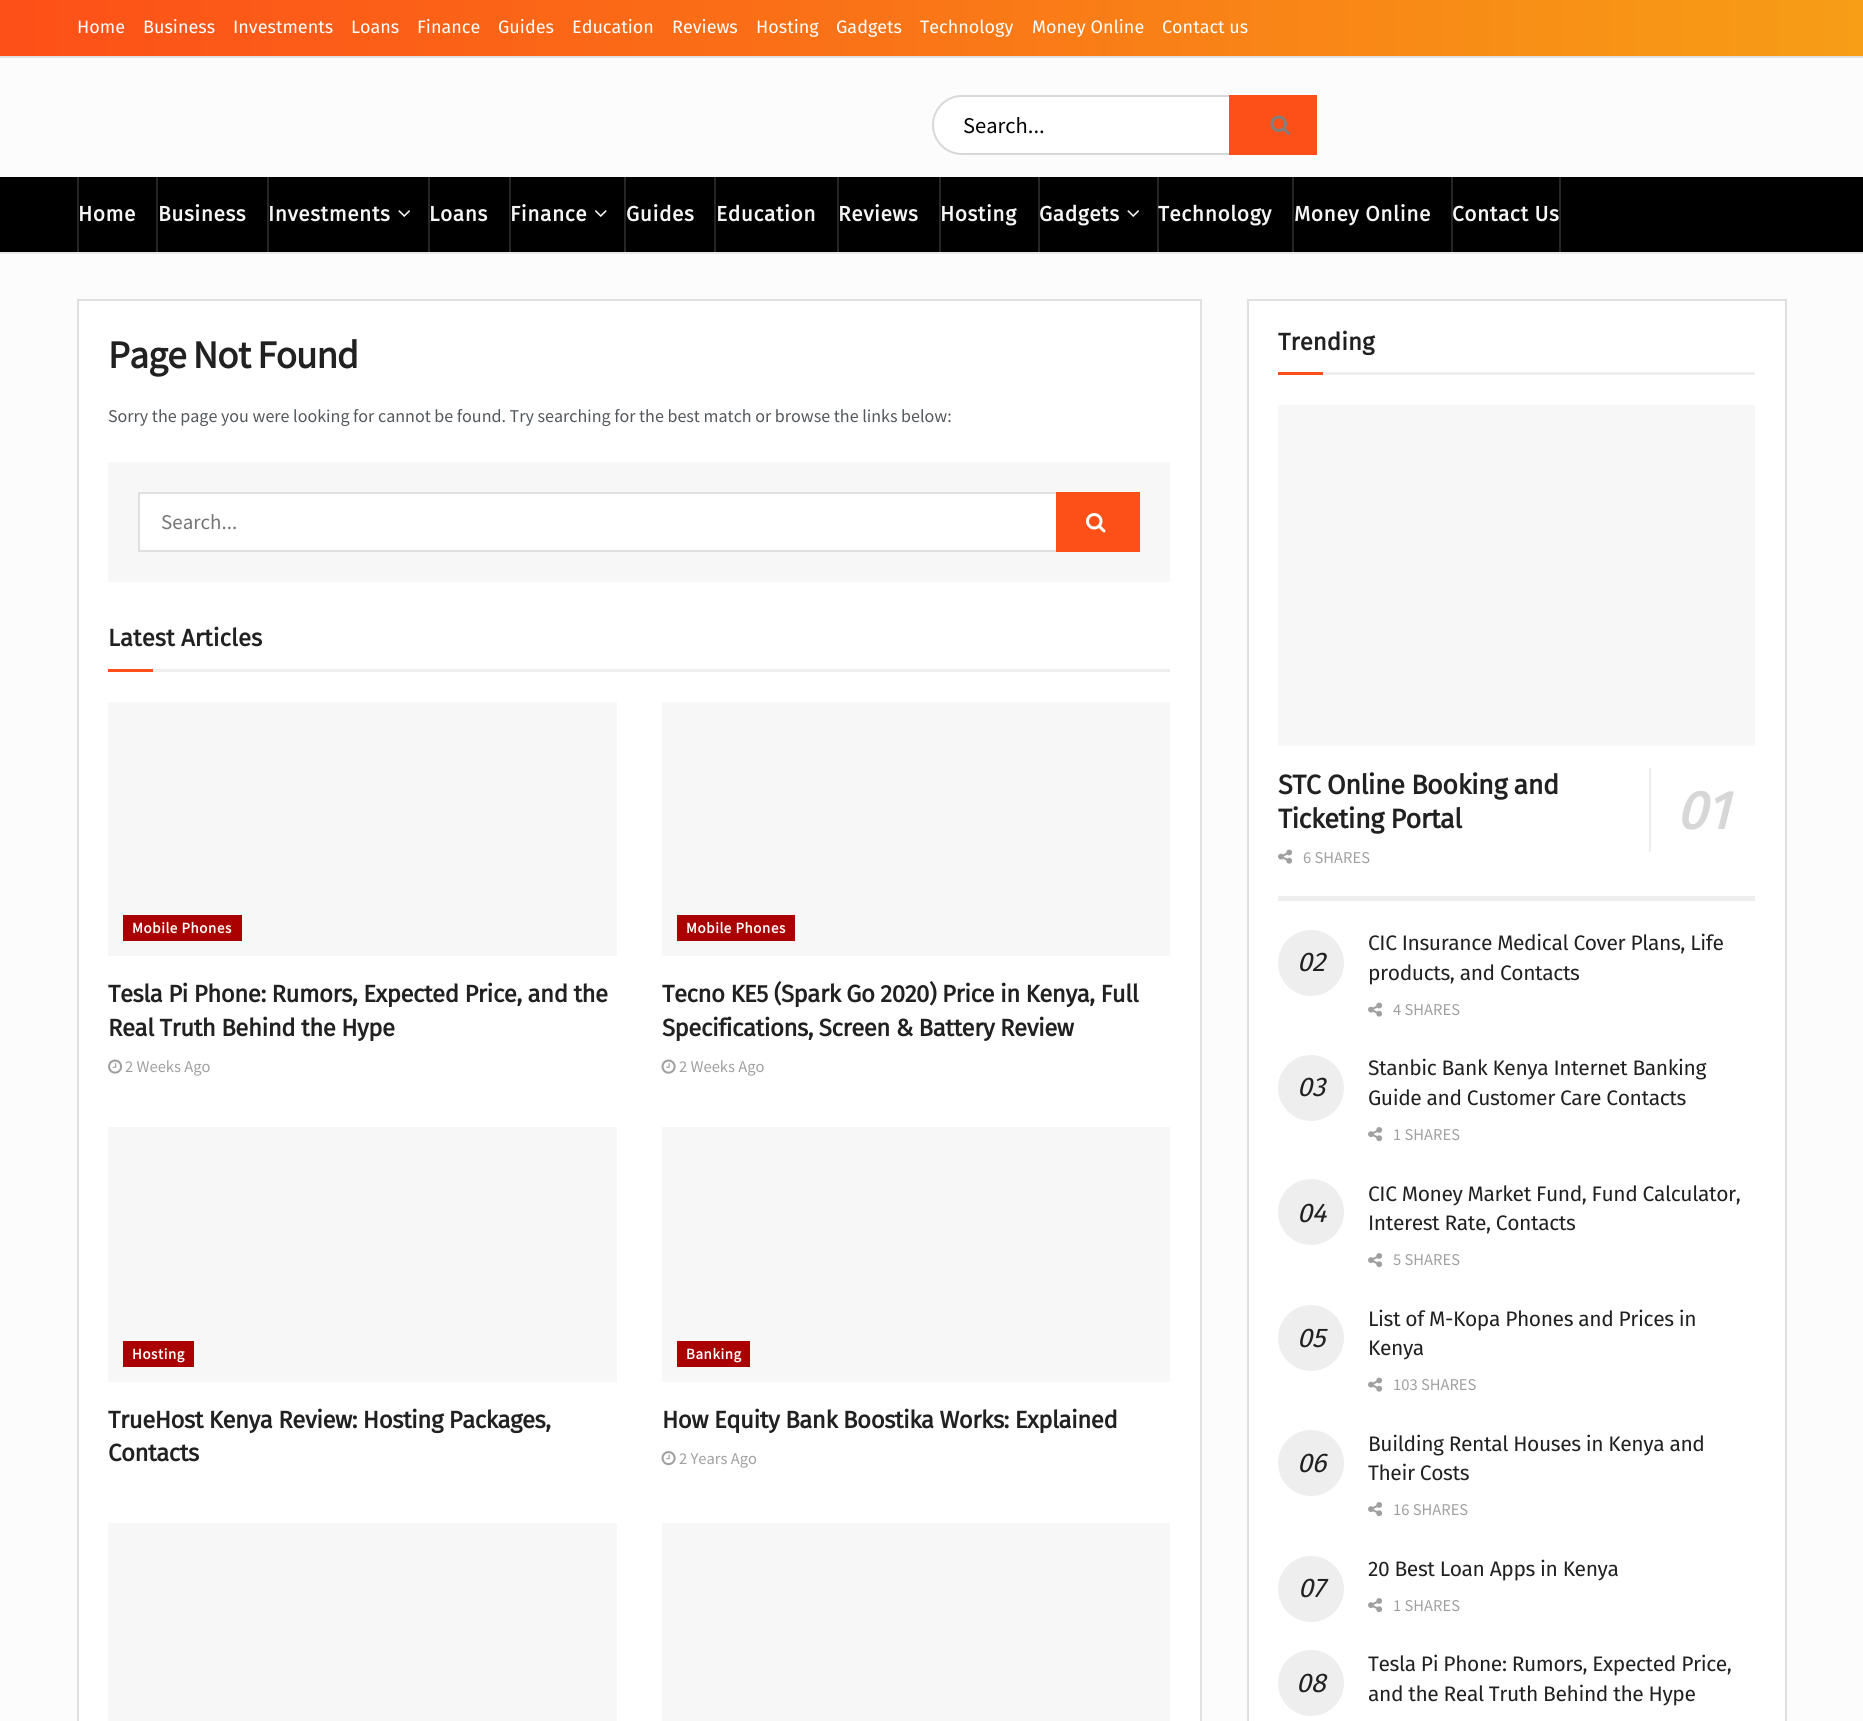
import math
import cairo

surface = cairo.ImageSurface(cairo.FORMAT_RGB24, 1863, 1721)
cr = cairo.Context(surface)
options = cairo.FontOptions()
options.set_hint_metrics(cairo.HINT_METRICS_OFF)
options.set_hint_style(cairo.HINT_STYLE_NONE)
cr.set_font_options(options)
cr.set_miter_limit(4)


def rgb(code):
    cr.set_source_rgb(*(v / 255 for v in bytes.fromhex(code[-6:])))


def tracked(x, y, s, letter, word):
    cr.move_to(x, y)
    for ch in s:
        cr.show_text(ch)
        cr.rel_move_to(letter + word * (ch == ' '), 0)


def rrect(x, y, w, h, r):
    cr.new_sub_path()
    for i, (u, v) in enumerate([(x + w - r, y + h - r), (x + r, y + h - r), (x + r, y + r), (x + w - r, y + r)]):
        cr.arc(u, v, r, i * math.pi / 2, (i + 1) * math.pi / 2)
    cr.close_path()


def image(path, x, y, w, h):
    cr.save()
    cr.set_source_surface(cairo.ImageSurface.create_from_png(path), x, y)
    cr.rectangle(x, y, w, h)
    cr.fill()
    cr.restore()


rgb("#fcfcfc")
cr.paint()
gradient = cairo.LinearGradient(0, 28, 1863, 28)
gradient.add_color_stop_rgba(0, 0.992, 0.31, 0.094, 1)
gradient.add_color_stop_rgba(1, 0.969, 0.616, 0.086, 1)
cr.set_source(gradient)
cr.rectangle(0, 0, 1863, 56)
cr.fill()
rgb("#e0e0e0")
cr.rectangle(0, 56, 1863, 2)
cr.fill()
rgb("#ffffff")
rrect(933, 96, 383, 58, 29)
cr.fill_preserve()
rgb("#d8d8d8")
cr.stroke()
rgb("#fd4f18")
cr.rectangle(1229, 95, 88, 60)
cr.fill()
image("img/1.png", 1270, 115, 20, 20)
for x, y, w, h, color in [
    (0, 177, 1863, 75, "#000000"),
    (0, 252, 1863, 2, "#e8e8e8"),
    (1559, 177, 2, 75, "#262626"),
    (77, 177, 2, 75, "#262626"),
    (156, 177, 2, 75, "#262626"),
    (267, 177, 2, 75, "#262626"),
    (428, 177, 2, 75, "#262626"),
]:
    rgb(color)
    cr.rectangle(x, y, w, h)
    cr.fill()
image("img/2.png", 398, 210, 12, 7)
cr.rectangle(509, 177, 2, 75)
cr.fill()
cr.rectangle(624, 177, 2, 75)
cr.fill()
image("img/3.png", 595, 210, 12, 7)
for x, y, w, h, color in [
    (714, 177, 2, 75, "#262626"),
    (837, 177, 2, 75, "#262626"),
    (939, 177, 2, 75, "#262626"),
    (1038, 177, 2, 75, "#262626"),
    (1157, 177, 2, 75, "#262626"),
]:
    rgb(color)
    cr.rectangle(x, y, w, h)
    cr.fill()
image("img/2.png", 1127, 210, 12, 7)
cr.rectangle(1292, 177, 2, 75)
cr.fill()
cr.rectangle(1451, 177, 2, 75)
cr.fill()
rgb("#ffffff")
cr.rectangle(78, 300, 1123, 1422)
cr.fill_preserve()
rgb("#e0e0e0")
cr.stroke()
rgb("#f7f7f7")
cr.rectangle(108, 462, 1062, 120)
cr.fill()
rgb("#ffffff")
cr.rectangle(140, 494, 916, 56)
cr.fill()
cr.rectangle(139, 493, 1000, 58)
rgb("#e0e0e0")
cr.stroke()
rgb("#fd4f18")
cr.rectangle(1056, 492, 84, 60)
cr.fill()
image("img/4.png", 1086, 513, 20, 20)
for x, y, w, h, color in [
    (153, 669, 1017, 3, "#eeeeee"),
    (108, 669, 45, 3, "#fd4f18"),
    (108, 702, 509, 254, "#f7f7f7"),
    (123, 915, 119, 26, "#aa0000"),
]:
    rgb(color)
    cr.rectangle(x, y, w, h)
    cr.fill()
image("img/5.png", 108, 1059, 15, 15)
rgb("#f7f7f7")
cr.rectangle(662, 702, 508, 254)
cr.fill()
rgb("#aa0000")
cr.rectangle(677, 915, 118, 26)
cr.fill()
image("img/6.png", 661, 1059, 15, 15)
for x, y, w, h, color in [
    (108, 1127, 509, 255, "#f7f7f7"),
    (123, 1341, 71, 26, "#aa0000"),
    (662, 1127, 508, 255, "#f7f7f7"),
    (677, 1341, 73, 26, "#aa0000"),
]:
    rgb(color)
    cr.rectangle(x, y, w, h)
    cr.fill()
image("img/7.png", 661, 1451, 15, 15)
rgb("#f7f7f7")
cr.rectangle(108, 1523, 509, 198)
cr.fill()
cr.rectangle(662, 1523, 508, 198)
cr.fill()
rgb("#ffffff")
cr.rectangle(1248, 300, 538, 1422)
cr.fill_preserve()
rgb("#e0e0e0")
cr.stroke()
for x, y, w, h, color in [
    (1323, 372, 432, 3, "#eeeeee"),
    (1278, 372, 45, 3, "#fd4f18"),
    (1278, 896, 477, 5, "#eeeeee"),
    (1278, 405, 477, 341, "#f7f7f7"),
    (1649, 768, 2, 84, "#eeeeee"),
]:
    rgb(color)
    cr.rectangle(x, y, w, h)
    cr.fill()
image("img/8.png", 1278, 849, 15, 15)
cr.arc(1311, 963, 33, 0, 2 * math.pi)
cr.fill()
image("img/8.png", 1368, 1002, 15, 15)
cr.arc(1311, 1088, 33, 0, 2 * math.pi)
cr.fill()
image("img/9.png", 1368, 1127, 15, 15)
cr.arc(1311, 1212, 33, 0, 2 * math.pi)
cr.fill()
image("img/9.png", 1368, 1253, 15, 15)
cr.arc(1311, 1338, 33, 0, 2 * math.pi)
cr.fill()
image("img/8.png", 1368, 1377, 15, 15)
cr.arc(1311, 1463, 33, 0, 2 * math.pi)
cr.fill()
image("img/9.png", 1368, 1502, 15, 15)
cr.arc(1311, 1589, 33, 0, 2 * math.pi)
cr.fill()
image("img/9.png", 1368, 1598, 15, 15)
cr.arc(1311, 1683, 33, 0, 2 * math.pi)
cr.fill()
cr.select_font_face("Fira Sans")
cr.set_font_size(18)
rgb("#ffffff")
for x, y, s in [
    (77, 33, "Home"),
    (143, 33, "Business"),
    (233, 33, "Investments"),
    (351, 33, "Loans"),
    (417, 33, "Finance"),
    (498, 33, "Guides"),
    (572, 33, "Education"),
    (672, 33, "Reviews"),
    (756, 33, "Hosting"),
    (836, 33, "Gadgets"),
    (920, 33, "Technology"),
    (1032, 33, "Money Online"),
    (1162, 33, "Contact us"),
]:
    cr.move_to(x, y)
    cr.show_text(s)
cr.select_font_face("Source Sans Pro")
cr.set_font_size(22.5)
rgb("#020202")
cr.move_to(963, 133)
cr.show_text("Search...")
cr.select_font_face("Fira Sans", cairo.FONT_SLANT_NORMAL, cairo.FONT_WEIGHT_BOLD)
cr.set_font_size(21)
rgb("#f5f5f5")
for x, y, s in [
    (78, 221, "Home"),
    (158, 221, "Business"),
    (268, 221, "Investments"),
    (429, 221, "Loans"),
    (510, 221, "Finance"),
    (626, 221, "Guides"),
    (716, 221, "Education"),
    (838, 221, "Reviews"),
    (940, 221, "Hosting"),
    (1039, 221, "Gadgets"),
    (1158, 221, "Technology"),
    (1294, 221, "Money Online"),
    (1452, 221, "Contact Us"),
]:
    tracked(x, y, s, 0.5, 0)
cr.select_font_face("Source Sans Pro", cairo.FONT_SLANT_NORMAL, cairo.FONT_WEIGHT_BOLD)
cr.set_font_size(39)
rgb("#212121")
tracked(108, 368, "Page Not Found", -0.75, 0)
cr.select_font_face("Source Sans Pro")
cr.set_font_size(18)
rgb("#53585c")
cr.move_to(108, 422)
cr.show_text("Sorry the page you were looking for cannot be found. Try searching for the best match or browse the links below:")
cr.set_font_size(21)
rgb("#757575")
cr.move_to(161, 529)
cr.show_text("Search...")
cr.select_font_face("Fira Sans", cairo.FONT_SLANT_NORMAL, cairo.FONT_WEIGHT_BOLD)
cr.set_font_size(24)
rgb("#212121")
cr.move_to(108, 646)
cr.show_text("Latest Articles")
cr.select_font_face("Source Sans Pro", cairo.FONT_SLANT_NORMAL, cairo.FONT_WEIGHT_BOLD)
cr.set_font_size(15)
rgb("#ffffff")
tracked(132, 933, "Mobile Phones", 0.6, 0)
cr.select_font_face("Fira Sans", cairo.FONT_SLANT_NORMAL, cairo.FONT_WEIGHT_BOLD)
cr.set_font_size(24)
rgb("#212121")
tracked(108, 1002, "Tesla Pi Phone: Rumors, Expected Price, and the", -0.5, 0)
tracked(108, 1036, "Real Truth Behind the Hype", -0.5, 0)
cr.select_font_face("Source Sans Pro")
cr.set_font_size(16.5)
rgb("#a0a0a0")
cr.move_to(125, 1072)
cr.show_text("2 Weeks Ago")
cr.select_font_face("Source Sans Pro", cairo.FONT_SLANT_NORMAL, cairo.FONT_WEIGHT_BOLD)
cr.set_font_size(15)
rgb("#ffffff")
tracked(686, 933, "Mobile Phones", 0.6, 0)
cr.select_font_face("Fira Sans", cairo.FONT_SLANT_NORMAL, cairo.FONT_WEIGHT_BOLD)
cr.set_font_size(24)
rgb("#212121")
tracked(662, 1002, "Tecno KE5 (Spark Go 2020) Price in Kenya, Full", -0.5, 0)
tracked(662, 1036, "Specifications, Screen & Battery Review", -0.5, 0)
cr.select_font_face("Source Sans Pro")
cr.set_font_size(16.5)
rgb("#a0a0a0")
cr.move_to(679, 1072)
cr.show_text("2 Weeks Ago")
cr.select_font_face("Source Sans Pro", cairo.FONT_SLANT_NORMAL, cairo.FONT_WEIGHT_BOLD)
cr.set_font_size(15)
rgb("#ffffff")
tracked(132, 1359, "Hosting", 0.6, 0)
cr.select_font_face("Fira Sans", cairo.FONT_SLANT_NORMAL, cairo.FONT_WEIGHT_BOLD)
cr.set_font_size(24)
rgb("#212121")
tracked(108, 1428, "TrueHost Kenya Review: Hosting Packages,", -0.5, 0)
tracked(108, 1461, "Contacts", -0.5, 0)
cr.select_font_face("Source Sans Pro", cairo.FONT_SLANT_NORMAL, cairo.FONT_WEIGHT_BOLD)
cr.set_font_size(15)
rgb("#ffffff")
tracked(686, 1359, "Banking", 0.6, 0)
cr.select_font_face("Fira Sans", cairo.FONT_SLANT_NORMAL, cairo.FONT_WEIGHT_BOLD)
cr.set_font_size(24)
rgb("#212121")
tracked(662, 1428, "How Equity Bank Boostika Works: Explained", -0.5, 0)
cr.select_font_face("Source Sans Pro")
cr.set_font_size(16.5)
rgb("#a0a0a0")
cr.move_to(679, 1464)
cr.show_text("2 Years Ago")
cr.select_font_face("Fira Sans", cairo.FONT_SLANT_NORMAL, cairo.FONT_WEIGHT_BOLD)
cr.set_font_size(24)
rgb("#212121")
cr.move_to(1278, 350)
cr.show_text("Trending")
cr.set_font_size(27)
tracked(1278, 794, "STC Online Booking and", -0.5, 0)
tracked(1278, 828, "Ticketing Portal", -0.5, 0)
cr.select_font_face("Fira Sans", cairo.FONT_SLANT_ITALIC, cairo.FONT_WEIGHT_BOLD)
cr.set_font_size(54)
rgb("#d7d7d7")
tracked(1676, 829, "01", -0.5, 0)
cr.select_font_face("Source Sans Pro")
cr.set_font_size(16.5)
rgb("#a0a0a0")
cr.move_to(1303, 863)
cr.show_text("6 SHARES")
cr.select_font_face("Fira Sans")
cr.set_font_size(21)
rgb("#212121")
tracked(1368, 950, "CIC Insurance Medical Cover Plans, Life", -0.4, 0)
cr.select_font_face("Fira Sans", cairo.FONT_SLANT_ITALIC)
cr.set_font_size(27)
tracked(1297, 971, "02", -0.4, 0)
cr.select_font_face("Fira Sans")
cr.set_font_size(21)
tracked(1368, 980, "products, and Contacts", -0.4, 0)
cr.select_font_face("Source Sans Pro")
cr.set_font_size(16.5)
rgb("#a0a0a0")
cr.move_to(1393, 1015)
cr.show_text("4 SHARES")
cr.select_font_face("Fira Sans")
cr.set_font_size(21)
rgb("#212121")
tracked(1368, 1075, "Stanbic Bank Kenya Internet Banking", -0.4, 0)
cr.select_font_face("Fira Sans", cairo.FONT_SLANT_ITALIC)
cr.set_font_size(27)
tracked(1297, 1096, "03", -0.4, 0)
cr.select_font_face("Fira Sans")
cr.set_font_size(21)
tracked(1368, 1105, "Guide and Customer Care Contacts", -0.4, 0)
cr.select_font_face("Source Sans Pro")
cr.set_font_size(16.5)
rgb("#a0a0a0")
cr.move_to(1393, 1140)
cr.show_text("1 SHARES")
cr.select_font_face("Fira Sans")
cr.set_font_size(21)
rgb("#212121")
tracked(1368, 1201, "CIC Money Market Fund, Fund Calculator,", -0.4, 0)
cr.select_font_face("Fira Sans", cairo.FONT_SLANT_ITALIC)
cr.set_font_size(27)
tracked(1297, 1222, "04", -0.4, 0)
cr.select_font_face("Fira Sans")
cr.set_font_size(21)
tracked(1368, 1230, "Interest Rate, Contacts", -0.4, 0)
cr.select_font_face("Source Sans Pro")
cr.set_font_size(16.5)
rgb("#a0a0a0")
cr.move_to(1393, 1265)
cr.show_text("5 SHARES")
cr.select_font_face("Fira Sans")
cr.set_font_size(21)
rgb("#212121")
tracked(1368, 1326, "List of M-Kopa Phones and Prices in", -0.4, 0)
cr.select_font_face("Fira Sans", cairo.FONT_SLANT_ITALIC)
cr.set_font_size(27)
tracked(1297, 1347, "05", -0.4, 0)
cr.select_font_face("Fira Sans")
cr.set_font_size(21)
tracked(1368, 1355, "Kenya", -0.4, 0)
cr.select_font_face("Source Sans Pro")
cr.set_font_size(16.5)
rgb("#a0a0a0")
cr.move_to(1393, 1390)
cr.show_text("103 SHARES")
cr.select_font_face("Fira Sans")
cr.set_font_size(21)
rgb("#212121")
tracked(1368, 1451, "Building Rental Houses in Kenya and", -0.4, 0)
cr.select_font_face("Fira Sans", cairo.FONT_SLANT_ITALIC)
cr.set_font_size(27)
tracked(1297, 1472, "06", -0.4, 0)
cr.select_font_face("Fira Sans")
cr.set_font_size(21)
tracked(1368, 1480, "Their Costs", -0.4, 0)
cr.select_font_face("Source Sans Pro")
cr.set_font_size(16.5)
rgb("#a0a0a0")
cr.move_to(1393, 1515)
cr.show_text("16 SHARES")
cr.select_font_face("Fira Sans")
cr.set_font_size(21)
rgb("#212121")
tracked(1368, 1576, "20 Best Loan Apps in Kenya", -0.4, 0)
cr.select_font_face("Fira Sans", cairo.FONT_SLANT_ITALIC)
cr.set_font_size(27)
tracked(1298, 1597, "07", -0.4, 0)
cr.select_font_face("Source Sans Pro")
cr.set_font_size(16.5)
rgb("#a0a0a0")
cr.move_to(1393, 1611)
cr.show_text("1 SHARES")
cr.select_font_face("Fira Sans")
cr.set_font_size(21)
rgb("#212121")
tracked(1368, 1671, "Tesla Pi Phone: Rumors, Expected Price,", -0.4, 0)
cr.select_font_face("Fira Sans", cairo.FONT_SLANT_ITALIC)
cr.set_font_size(27)
tracked(1296, 1692, "08", -0.4, 0)
cr.select_font_face("Fira Sans")
cr.set_font_size(21)
tracked(1368, 1701, "and the Real Truth Behind the Hype", -0.4, 0)
surface.write_to_png("page.png")
